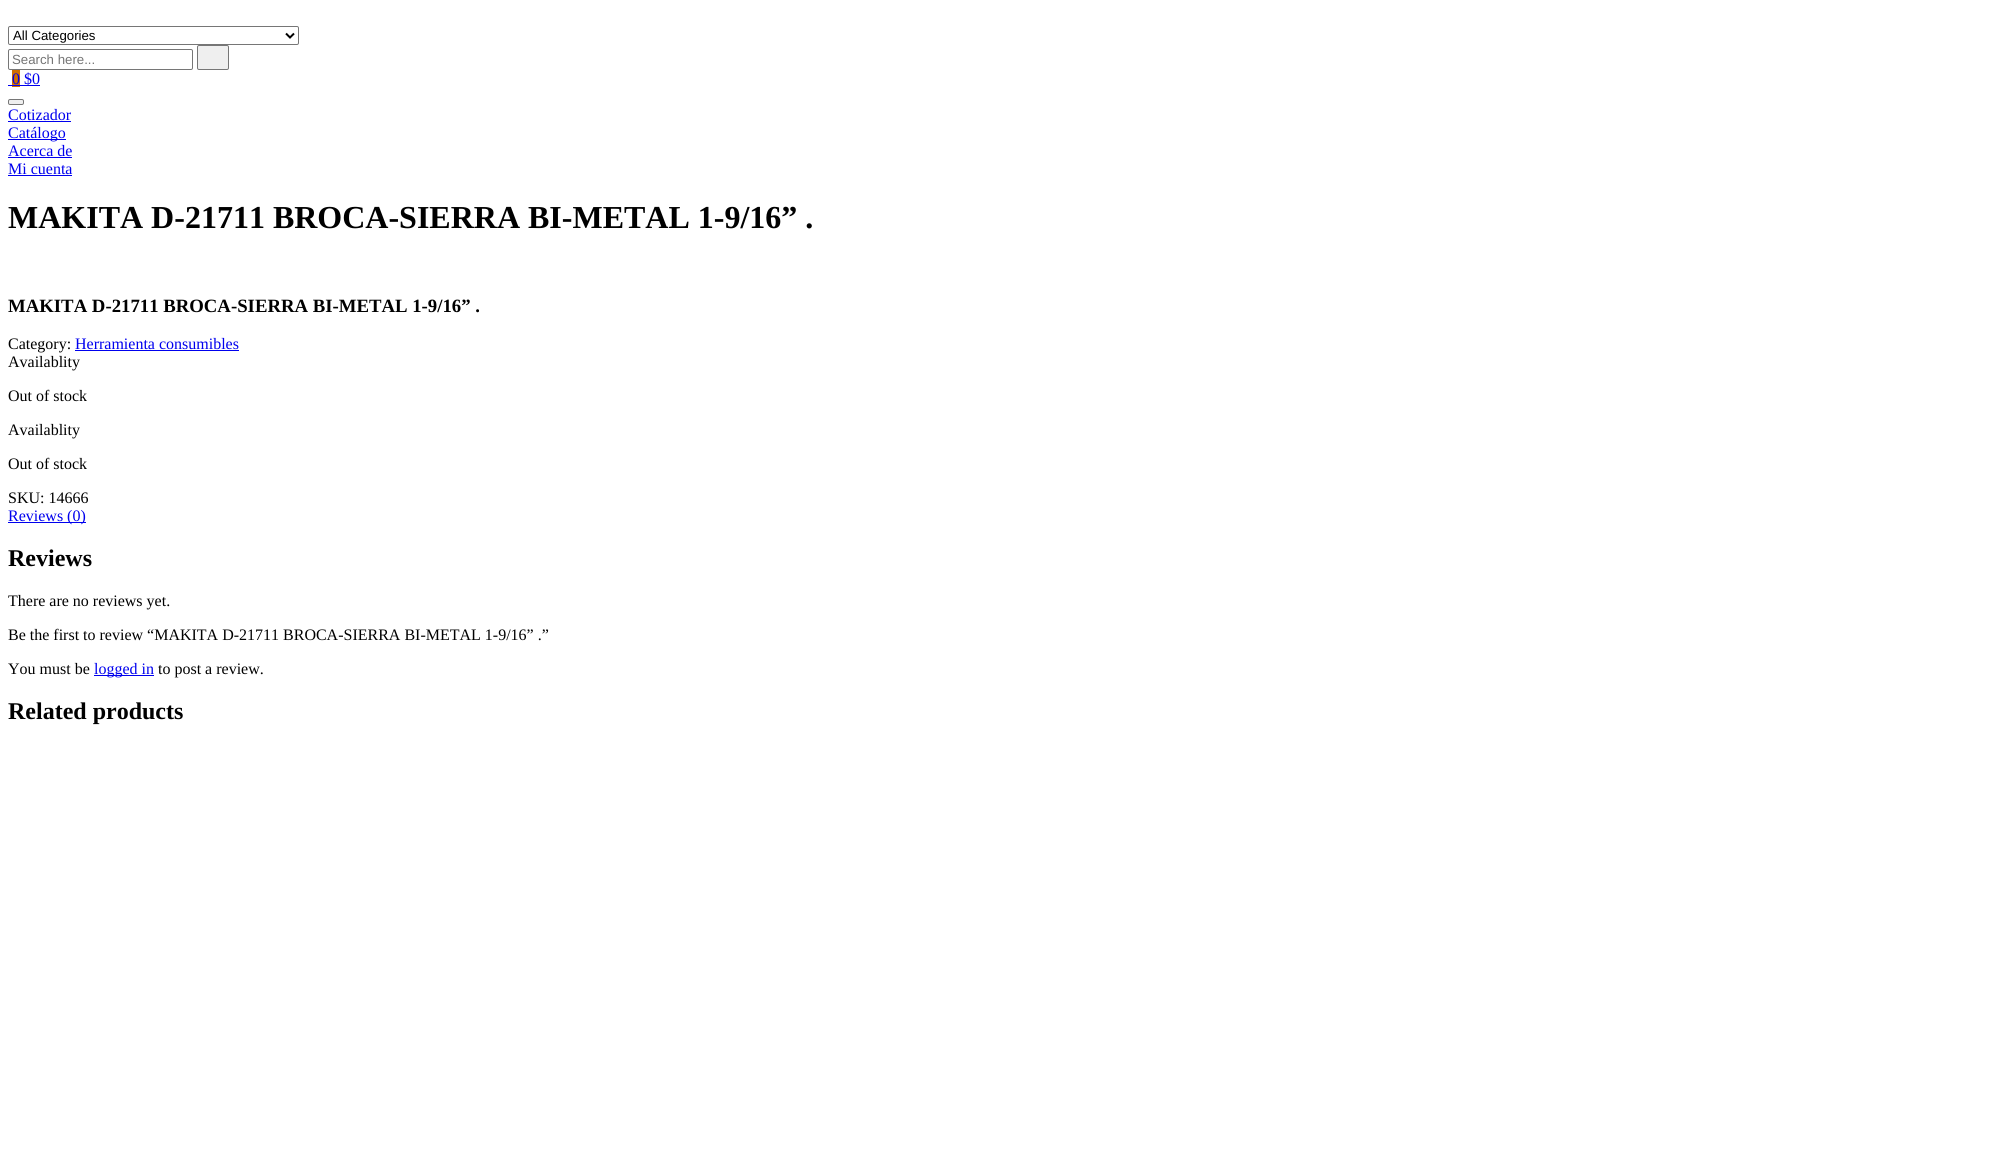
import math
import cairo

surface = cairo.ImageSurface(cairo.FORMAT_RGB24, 1991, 1158)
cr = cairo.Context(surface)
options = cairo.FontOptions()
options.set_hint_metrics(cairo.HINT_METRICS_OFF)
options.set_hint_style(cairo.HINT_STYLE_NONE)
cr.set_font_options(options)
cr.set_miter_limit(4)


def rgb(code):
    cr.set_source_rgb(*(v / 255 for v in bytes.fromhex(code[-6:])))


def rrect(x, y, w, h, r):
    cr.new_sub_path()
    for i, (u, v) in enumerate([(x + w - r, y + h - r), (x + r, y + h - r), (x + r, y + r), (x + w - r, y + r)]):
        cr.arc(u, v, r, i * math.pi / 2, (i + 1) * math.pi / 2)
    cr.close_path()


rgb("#ffffff")
cr.paint()
rrect(8.5, 26.5, 290, 18, 1.5)
rgb("#767676")
cr.set_line_width(1)
cr.stroke()
cr.new_path()
cr.move_to(286, 33.5)
cr.line_to(290, 37.5)
cr.line_to(294, 33.5)
rgb("#000000")
cr.set_line_width(2)
cr.stroke()
rrect(8.5, 49.5, 184, 20, 1.5)
rgb("#767676")
cr.set_line_width(1)
cr.stroke()
rgb("#efefef")
rrect(197.5, 45.5, 31, 24, 1.5)
cr.fill_preserve()
rgb("#767676")
cr.stroke()
for x, y, w, h, color in [
    (8, 85, 4, 1, "#0000ee"),
    (12, 70, 8, 17, "#d16f00"),
    (12, 85, 28, 1, "#0000ee"),
]:
    rgb(color)
    cr.rectangle(x, y, w, h)
    cr.fill()
rgb("#efefef")
rrect(8.5, 99.5, 15, 5, 1.5)
cr.fill_preserve()
rgb("#767676")
cr.stroke()
for x, y, w, h, color in [
    (8, 121, 63, 1, "#0000ee"),
    (8, 139, 58, 1, "#0000ee"),
    (8, 157, 64, 1, "#0000ee"),
    (8, 175, 64, 1, "#0000ee"),
    (75, 350, 164, 1, "#0000ee"),
    (8, 522, 78, 1, "#0000ee"),
    (94, 675, 60, 1, "#0000ee"),
]:
    rgb(color)
    cr.rectangle(x, y, w, h)
    cr.fill()
cr.select_font_face("Liberation Sans")
cr.set_font_size(13.25)
rgb("#000000")
cr.move_to(13, 40)
cr.show_text("All Categories")
rgb("#757575")
cr.move_to(12, 64)
cr.show_text("Search here...")
cr.select_font_face("Liberation Serif")
cr.set_font_size(16)
rgb("#0000ee")
for x, y, s in [
    (12, 84, "0 $0"),
    (8, 120, "Cotizador"),
    (8, 138, "Catálogo"),
    (8, 156, "Acerca de"),
    (8, 174, "Mi cuenta"),
]:
    cr.move_to(x, y)
    cr.show_text(s)
cr.select_font_face("Liberation Serif", cairo.FONT_SLANT_NORMAL, cairo.FONT_WEIGHT_BOLD)
cr.set_font_size(32)
rgb("#000000")
cr.move_to(8, 228)
cr.show_text("MAKITA D-21711 BROCA-SIERRA BI-METAL 1-9/16” .")
cr.set_font_size(18.75)
cr.move_to(8, 312)
cr.show_text("MAKITA D-21711 BROCA-SIERRA BI-METAL 1-9/16” .")
cr.select_font_face("Liberation Serif")
cr.set_font_size(16)
cr.move_to(8, 349)
cr.show_text("Category:")
rgb("#0000ee")
cr.move_to(75, 349)
cr.show_text("Herramienta consumibles")
rgb("#000000")
for x, y, s in [
    (8, 367, "Availablity"),
    (8, 401, "Out of stock"),
    (8, 435, "Availablity"),
    (8, 469, "Out of stock"),
    (8, 503, "SKU: 14666"),
]:
    cr.move_to(x, y)
    cr.show_text(s)
rgb("#0000ee")
cr.move_to(8, 521)
cr.show_text("Reviews (0)")
cr.select_font_face("Liberation Serif", cairo.FONT_SLANT_NORMAL, cairo.FONT_WEIGHT_BOLD)
cr.set_font_size(24)
rgb("#000000")
cr.move_to(8, 566)
cr.show_text("Reviews")
cr.select_font_face("Liberation Serif")
cr.set_font_size(16)
for x, y, s in [
    (8, 606, "There are no reviews yet."),
    (8, 640, "Be the first to review “MAKITA D-21711 BROCA-SIERRA BI-METAL 1-9/16” .”"),
    (8, 674, "You must be"),
]:
    cr.move_to(x, y)
    cr.show_text(s)
rgb("#0000ee")
cr.move_to(94, 674)
cr.show_text("logged in")
rgb("#000000")
cr.move_to(158, 674)
cr.show_text("to post a review.")
cr.select_font_face("Liberation Serif", cairo.FONT_SLANT_NORMAL, cairo.FONT_WEIGHT_BOLD)
cr.set_font_size(24)
cr.move_to(8, 719)
cr.show_text("Related products")
surface.write_to_png("page.png")
